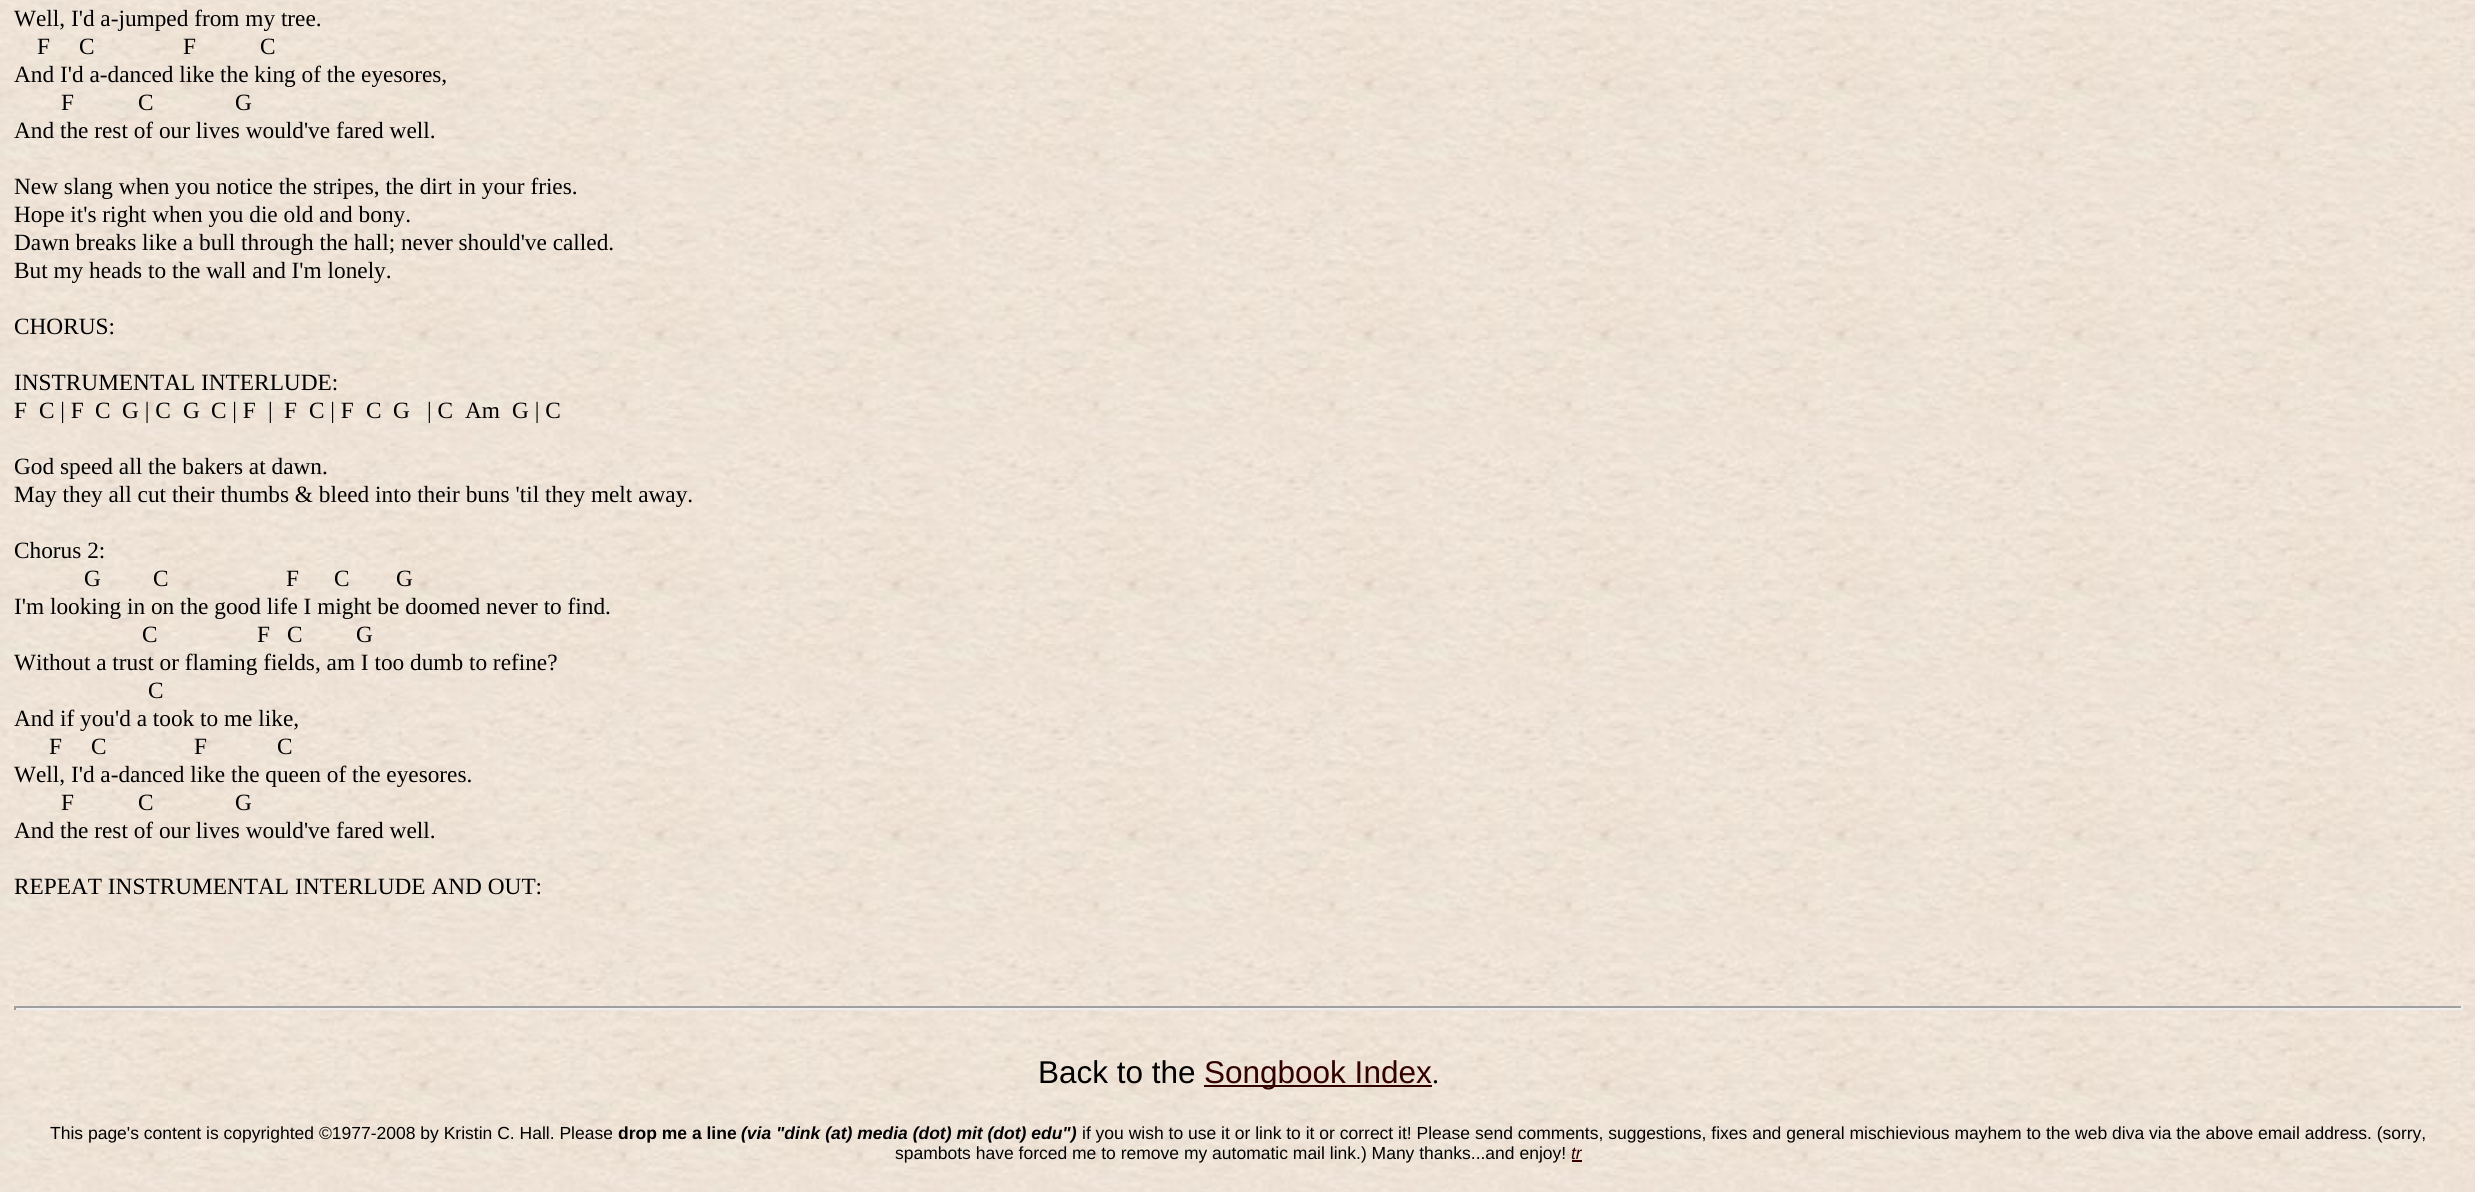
import math
import cairo

surface = cairo.ImageSurface(cairo.FORMAT_RGB24, 2475, 1192)
cr = cairo.Context(surface)
options = cairo.FontOptions()
options.set_hint_metrics(cairo.HINT_METRICS_OFF)
options.set_hint_style(cairo.HINT_STYLE_NONE)
cr.set_font_options(options)
cr.set_miter_limit(4)


def rgb(code):
    cr.set_source_rgb(*(v / 255 for v in bytes.fromhex(code[-6:])))


def image(path, x, y, w, h):
    cr.save()
    cr.set_source_surface(cairo.ImageSurface.create_from_png(path), x, y)
    cr.rectangle(x, y, w, h)
    cr.fill()
    cr.restore()


rgb("#ffffff")
cr.paint()
image("img/1.png", 0, 0, 2475, 1192)
for x, y, w, h, color in [
    (14, 1006, 2448, 2, "#9f9f9f"),
    (2461, 1006, 2, 4, "#eeeeee"),
    (14, 1008, 2448, 2, "#eeeeee"),
    (14, 1006, 2, 4, "#9f9f9f"),
    (1204, 1085, 228, 2, "#330000"),
    (1572, 1160, 10, 2, "#330000"),
]:
    rgb(color)
    cr.rectangle(x, y, w, h)
    cr.fill()
cr.select_font_face("Liberation Serif")
cr.set_font_size(23.3)
rgb("#000000")
for x, y, s in [
    (14, 26, "Well, I'd a-jumped from my tree."),
    (37, 54, "F"),
    (79, 54, "C"),
    (183, 54, "F"),
    (260, 54, "C"),
    (14, 82, "And I'd a-danced like the king of the eyesores,"),
    (61, 110, "F"),
    (138, 110, "C"),
    (235, 110, "G"),
    (14, 138, "And the rest of our lives would've fared well."),
    (14, 194, "New slang when you notice the stripes, the dirt in your fries."),
    (14, 222, "Hope it's right when you die old and bony."),
    (14, 250, "Dawn breaks like a bull through the hall; never should've called."),
    (14, 278, "But my heads to the wall and I'm lonely."),
    (14, 334, "CHORUS:"),
    (14, 390, "INSTRUMENTAL INTERLUDE:"),
    (14, 418, "F"),
    (39, 418, "C | F"),
    (95, 418, "C"),
    (122, 418, "G | C"),
    (183, 418, "G"),
    (211, 418, "C | F"),
    (268, 418, "|"),
    (284, 418, "F"),
    (309, 418, "C | F"),
    (366, 418, "C"),
    (393, 418, "G"),
    (427, 418, "| C"),
    (465, 418, "Am"),
    (512, 418, "G | C"),
    (14, 474, "God speed all the bakers at dawn."),
    (14, 502, "May they all cut their thumbs & bleed into their buns 'til they melt away."),
    (14, 558, "Chorus 2:"),
    (84, 586, "G"),
    (153, 586, "C"),
    (286, 586, "F"),
    (334, 586, "C"),
    (396, 586, "G"),
    (14, 614, "I'm looking in on the good life I might be doomed never to find."),
    (142, 642, "C"),
    (257, 642, "F"),
    (287, 642, "C"),
    (356, 642, "G"),
    (14, 670, "Without a trust or flaming fields, am I too dumb to refine?"),
    (148, 698, "C"),
    (14, 726, "And if you'd a took to me like,"),
    (49, 754, "F"),
    (91, 754, "C"),
    (194, 754, "F"),
    (277, 754, "C"),
    (14, 782, "Well, I'd a-danced like the queen of the eyesores."),
    (61, 810, "F"),
    (138, 810, "C"),
    (235, 810, "G"),
    (14, 838, "And the rest of our lives would've fared well."),
    (14, 894, "REPEAT INSTRUMENTAL INTERLUDE AND OUT:"),
]:
    cr.move_to(x, y)
    cr.show_text(s)
cr.select_font_face("Liberation Sans")
cr.set_font_size(31.5)
cr.move_to(1038, 1083)
cr.show_text("Back to the")
rgb("#330000")
cr.move_to(1204, 1083)
cr.show_text("Songbook Index")
cr.select_font_face("Liberation Serif")
cr.set_font_size(28)
rgb("#000000")
cr.move_to(1432, 1083)
cr.show_text(".")
cr.select_font_face("Liberation Sans")
cr.set_font_size(17.5)
cr.move_to(50, 1139)
cr.show_text("This page's content is copyrighted ©1977-2008 by Kristin C. Hall. Please")
cr.select_font_face("Liberation Sans", cairo.FONT_SLANT_NORMAL, cairo.FONT_WEIGHT_BOLD)
cr.move_to(618, 1139)
cr.show_text("drop me a line")
cr.select_font_face("Liberation Sans", cairo.FONT_SLANT_ITALIC, cairo.FONT_WEIGHT_BOLD)
cr.move_to(741, 1139)
cr.show_text("(via \"dink (at) media (dot) mit (dot) edu\")")
cr.select_font_face("Liberation Sans")
cr.move_to(1082, 1139)
cr.show_text("if you wish to use it or link to it or correct it! Please send comments, suggestions, fixes and general mischievious mayhem to the web diva via the above email address. (sorry,")
cr.move_to(895, 1159)
cr.show_text("spambots have forced me to remove my automatic mail link.) Many thanks...and enjoy!")
cr.select_font_face("Liberation Sans", cairo.FONT_SLANT_ITALIC)
rgb("#330000")
cr.move_to(1571, 1159)
cr.show_text("tr")
surface.write_to_png("page.png")
